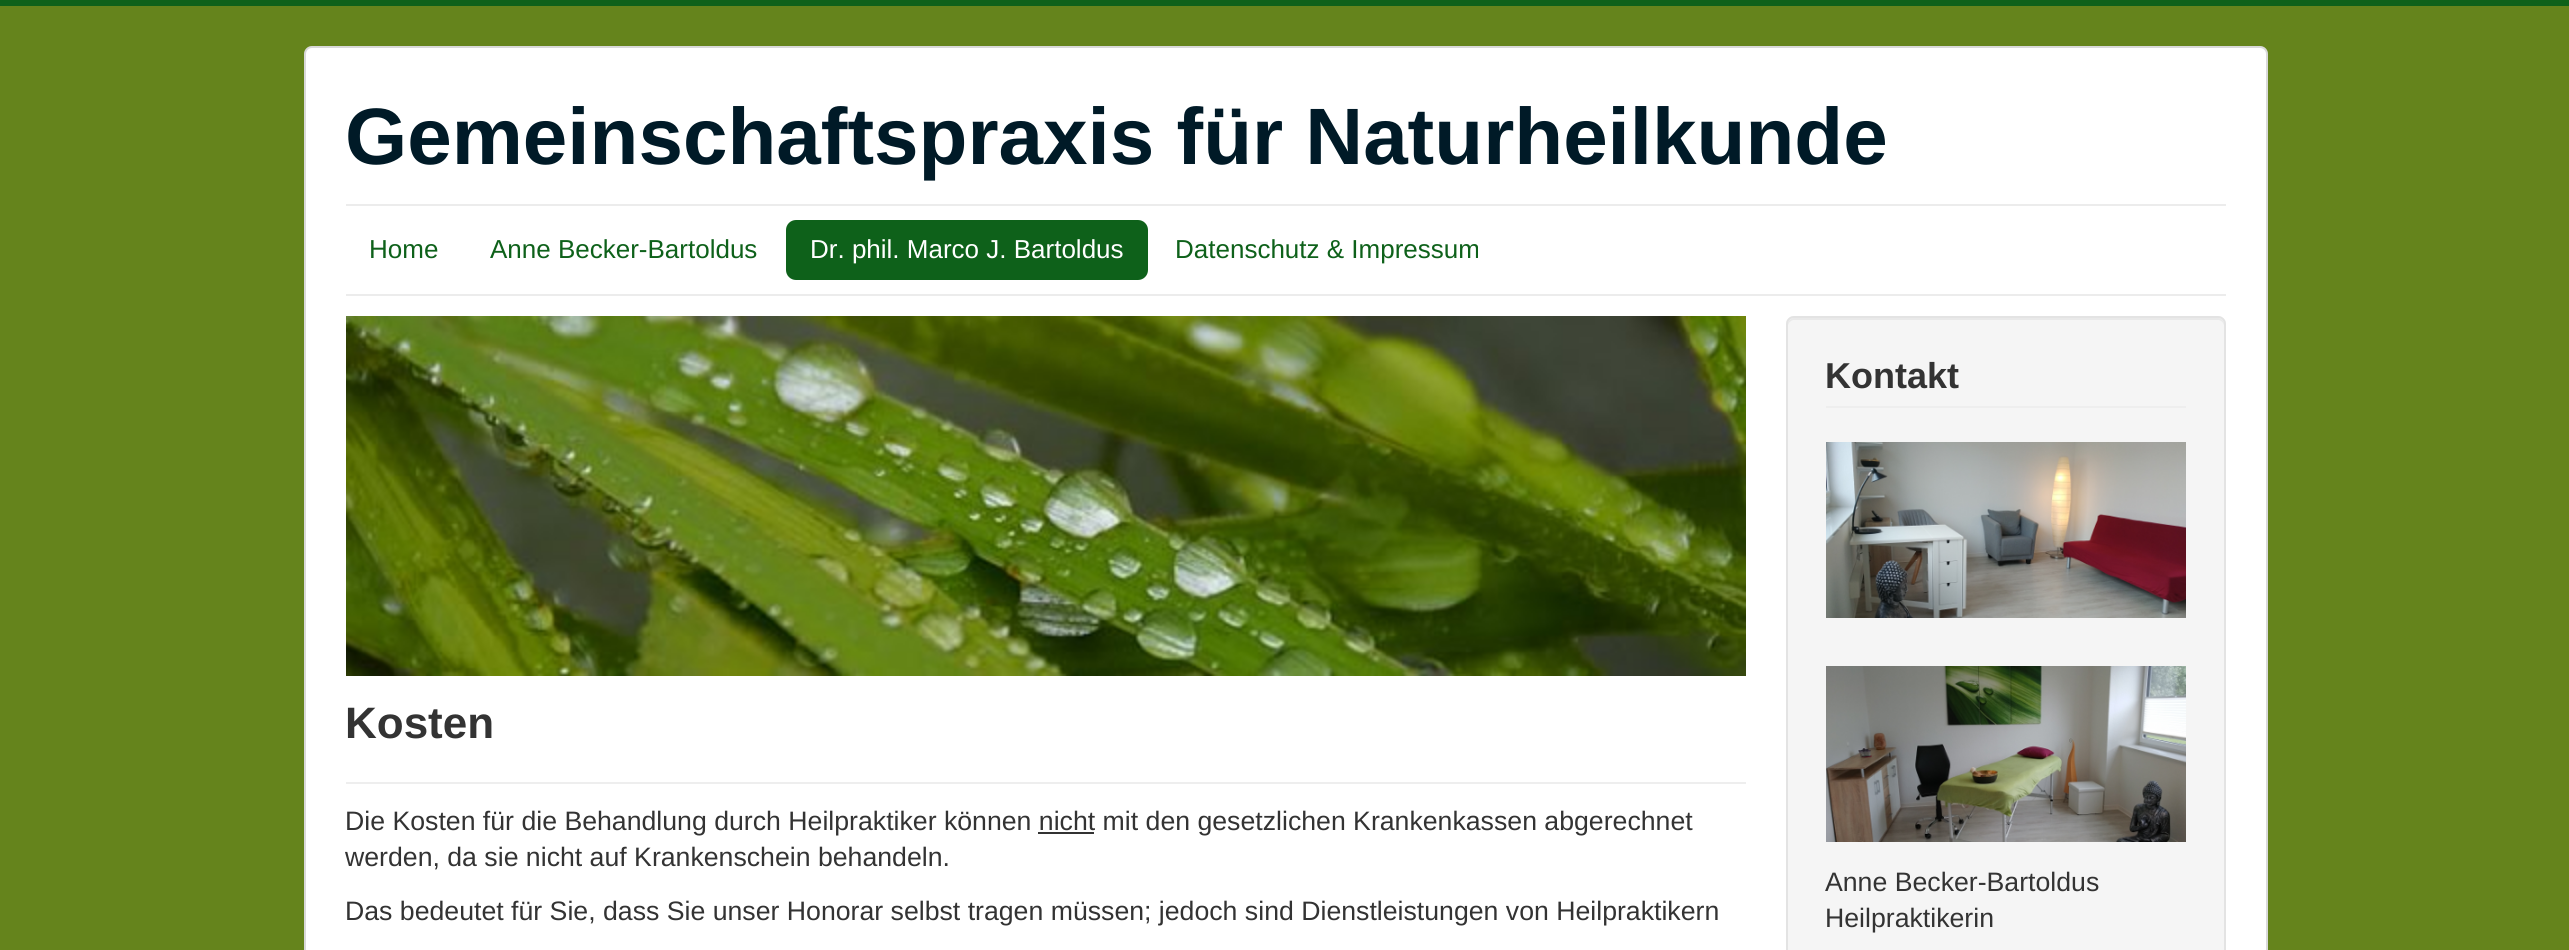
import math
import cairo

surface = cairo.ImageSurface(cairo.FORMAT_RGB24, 2569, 950)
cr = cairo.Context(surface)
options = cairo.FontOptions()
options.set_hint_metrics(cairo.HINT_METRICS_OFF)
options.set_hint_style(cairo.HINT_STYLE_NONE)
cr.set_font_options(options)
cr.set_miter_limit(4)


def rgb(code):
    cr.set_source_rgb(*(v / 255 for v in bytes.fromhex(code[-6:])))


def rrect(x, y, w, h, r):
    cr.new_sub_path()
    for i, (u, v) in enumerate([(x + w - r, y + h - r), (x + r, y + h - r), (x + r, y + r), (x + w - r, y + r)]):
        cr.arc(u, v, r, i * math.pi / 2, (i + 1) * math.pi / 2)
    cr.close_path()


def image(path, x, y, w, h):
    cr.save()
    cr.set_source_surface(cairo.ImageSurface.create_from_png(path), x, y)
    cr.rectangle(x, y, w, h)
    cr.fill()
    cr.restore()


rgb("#65841c")
cr.paint()
rgb("#0e611a")
cr.rectangle(0, 0, 2569, 6)
cr.fill()
rgb("#ffffff")
rrect(304, 46, 1964, 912, 8)
cr.fill()
rrect(305, 47, 1962, 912, 7)
cr.set_source_rgba(0, 0, 0, 0.15)
cr.stroke()
rgb("#ececec")
cr.rectangle(346, 204, 1880, 2)
cr.fill()
cr.rectangle(346, 294, 1880, 2)
cr.fill()
rgb("#0e611a")
rrect(786, 220, 362, 60, 10)
cr.fill()
image("img/1.png", 346, 316, 1400, 360)
rgb("#eeeeee")
cr.rectangle(346, 782, 1400, 2)
cr.fill()
rgb("#333333")
cr.rectangle(1038, 832, 56, 2)
cr.fill()
rgb("#f5f5f5")
rrect(1786, 316, 440, 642, 8)
cr.fill()
rgb("#e9e9e9")
cr.new_path()
cr.move_to(1794, 320)
cr.line_to(2218, 320)
cr.curve_to(2221, 320, 2224, 323, 2224, 326)
cr.line_to(2224, 324)
cr.curve_to(2224, 321, 2221, 318, 2218, 318)
cr.line_to(1794, 318)
cr.curve_to(1791, 318, 1788, 321, 1788, 324)
cr.line_to(1788, 326)
cr.curve_to(1788, 323, 1791, 320, 1794, 320)
cr.close_path()
cr.fill()
rrect(1787, 317, 438, 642, 7)
rgb("#e3e3e3")
cr.stroke()
rgb("#eeeeee")
cr.rectangle(1826, 406, 360, 2)
cr.fill()
image("img/2.png", 1826, 442, 360, 176)
image("img/3.png", 1826, 666, 360, 176)
cr.select_font_face("Liberation Sans", cairo.FONT_SLANT_NORMAL, cairo.FONT_WEIGHT_BOLD)
cr.set_font_size(80)
rgb("#001a27")
cr.move_to(345, 164)
cr.show_text("Gemeinschaftspraxis für Naturheilkunde")
cr.select_font_face("Liberation Sans")
cr.set_font_size(26)
rgb("#0e611a")
cr.move_to(369, 258)
cr.show_text("Home")
cr.move_to(490, 258)
cr.show_text("Anne Becker-Bartoldus")
rgb("#ffffff")
cr.move_to(810, 258)
cr.show_text("Dr. phil. Marco J. Bartoldus")
rgb("#0e611a")
cr.move_to(1175, 258)
cr.show_text("Datenschutz & Impressum")
cr.select_font_face("Liberation Sans", cairo.FONT_SLANT_NORMAL, cairo.FONT_WEIGHT_BOLD)
cr.set_font_size(44)
rgb("#333333")
cr.move_to(345, 738)
cr.show_text("Kosten")
cr.select_font_face("Liberation Sans")
cr.set_font_size(26.67)
for x, y, s in [
    (345, 830, "Die Kosten für die Behandlung durch Heilpraktiker können nicht mit den gesetzlichen Krankenkassen abgerechnet"),
    (345, 866, "werden, da sie nicht auf Krankenschein behandeln."),
    (345, 920, "Das bedeutet für Sie, dass Sie unser Honorar selbst tragen müssen; jedoch sind Dienstleistungen von Heilpraktikern"),
]:
    cr.move_to(x, y)
    cr.show_text(s)
cr.select_font_face("Liberation Sans", cairo.FONT_SLANT_NORMAL, cairo.FONT_WEIGHT_BOLD)
cr.set_font_size(36)
cr.move_to(1825, 388)
cr.show_text("Kontakt")
cr.select_font_face("Liberation Sans")
cr.set_font_size(26.67)
cr.move_to(1825, 891)
cr.show_text("Anne Becker-Bartoldus")
cr.move_to(1825, 927)
cr.show_text("Heilpraktikerin")
surface.write_to_png("page.png")
